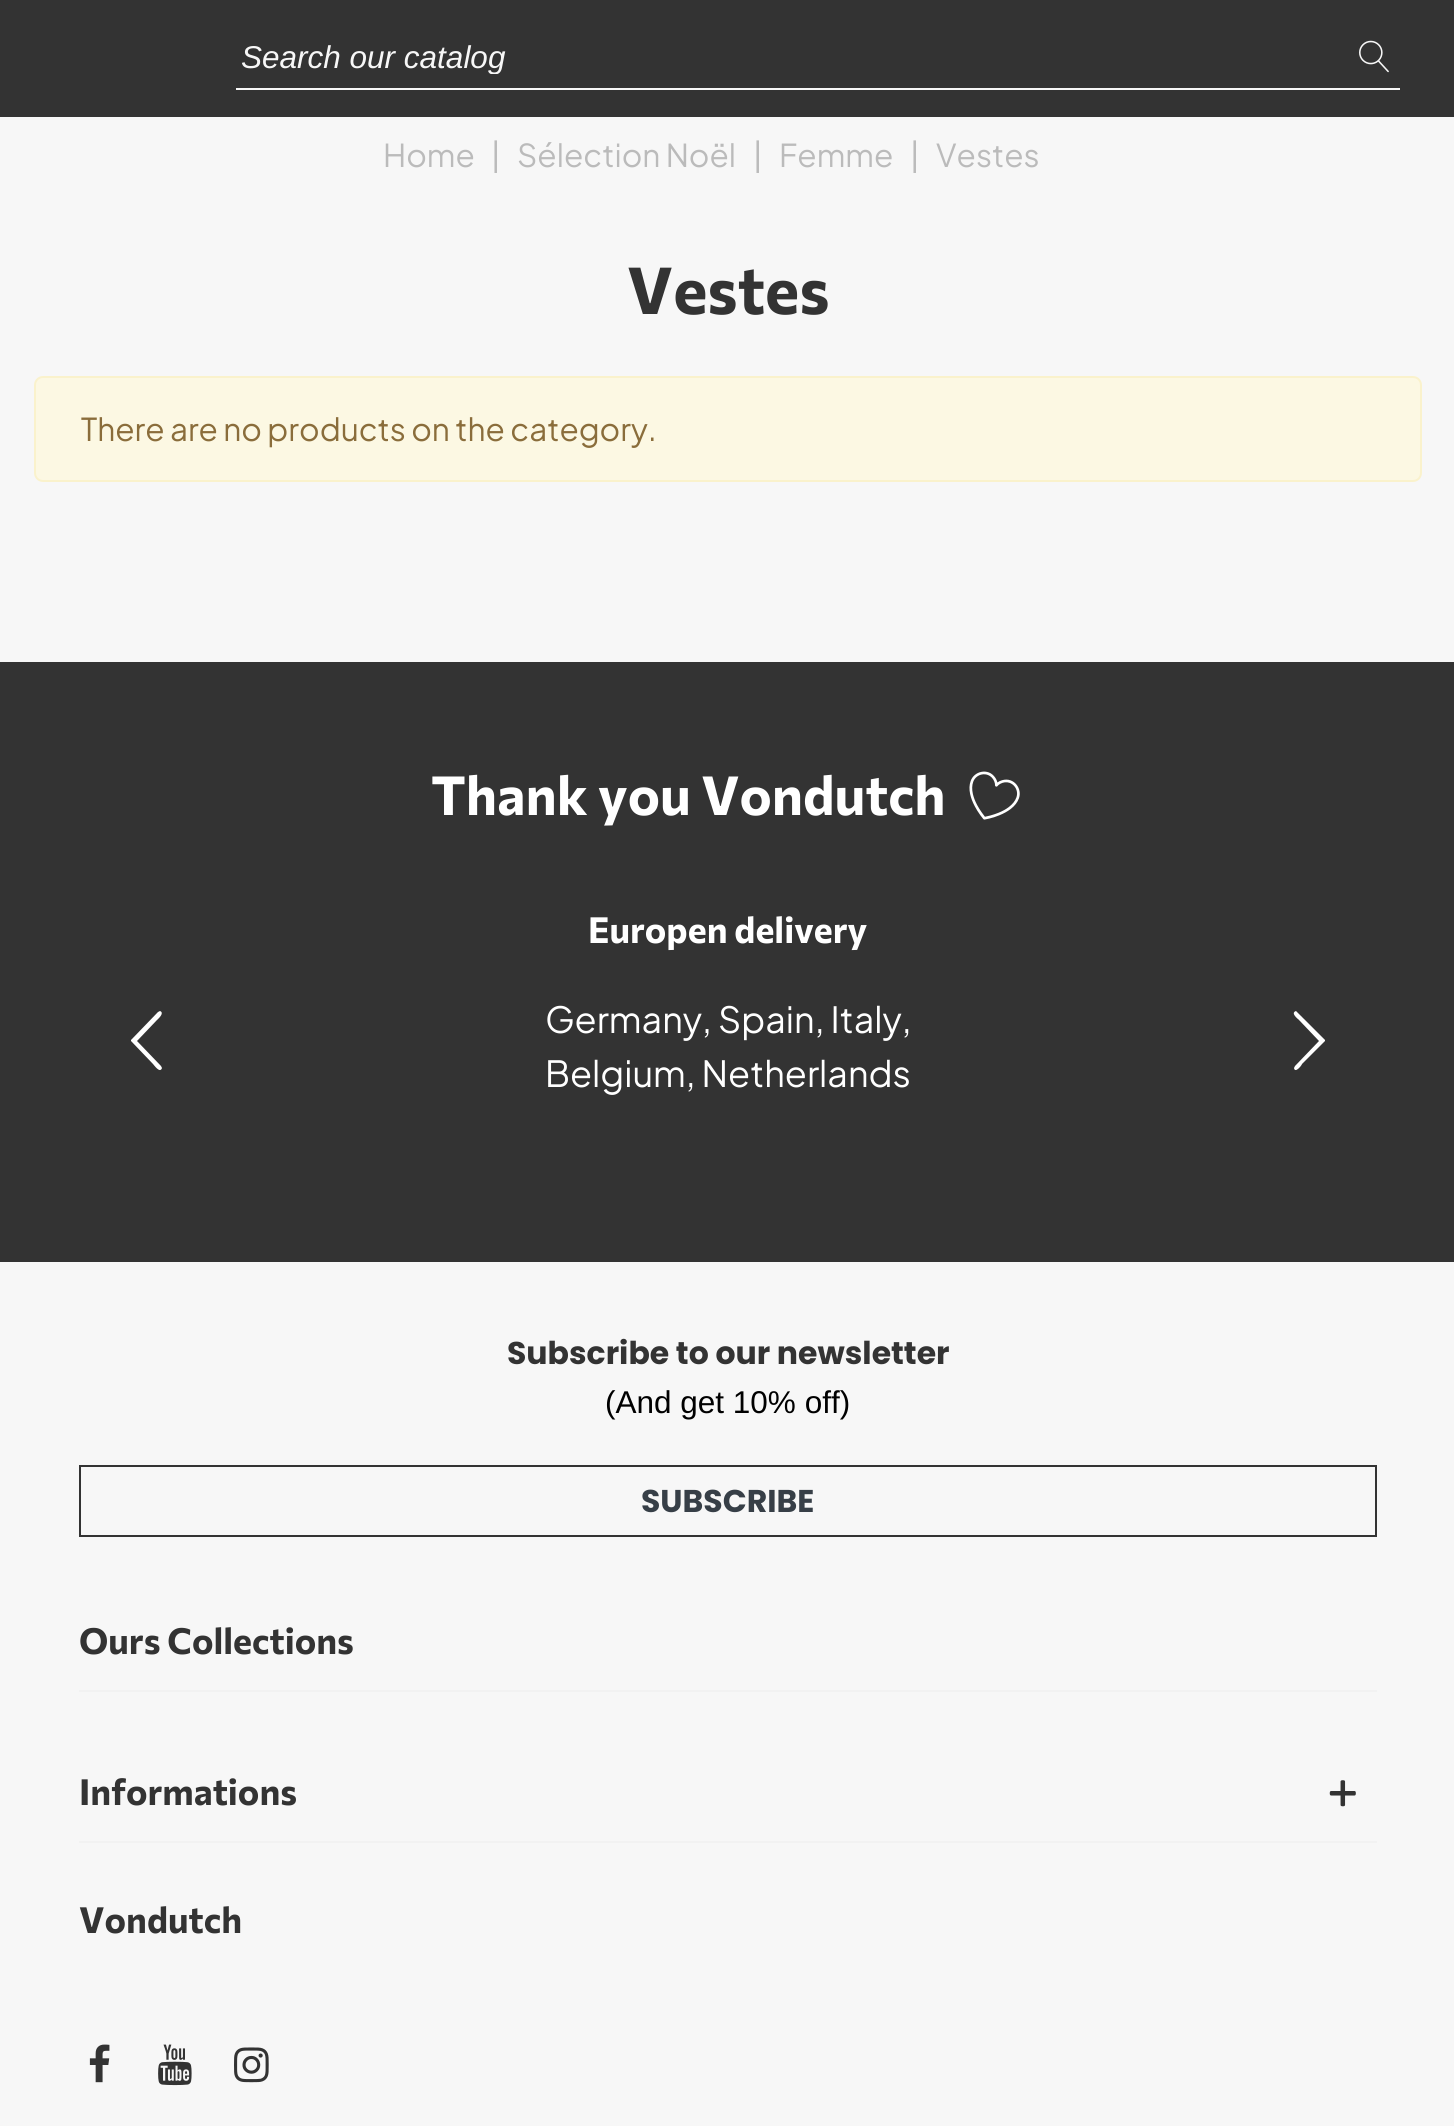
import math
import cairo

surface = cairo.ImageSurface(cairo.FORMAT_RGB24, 1454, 2126)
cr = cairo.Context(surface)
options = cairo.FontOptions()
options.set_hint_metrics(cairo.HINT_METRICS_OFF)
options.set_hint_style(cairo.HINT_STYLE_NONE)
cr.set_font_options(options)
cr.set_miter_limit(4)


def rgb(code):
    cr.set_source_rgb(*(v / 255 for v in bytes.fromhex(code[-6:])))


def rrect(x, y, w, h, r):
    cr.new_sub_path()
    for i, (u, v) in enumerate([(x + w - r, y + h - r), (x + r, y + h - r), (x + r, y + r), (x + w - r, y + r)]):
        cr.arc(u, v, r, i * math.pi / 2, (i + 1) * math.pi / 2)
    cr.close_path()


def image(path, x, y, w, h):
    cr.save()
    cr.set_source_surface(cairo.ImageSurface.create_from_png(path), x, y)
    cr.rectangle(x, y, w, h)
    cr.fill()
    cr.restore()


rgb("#f7f7f7")
cr.paint()
rgb("#333333")
cr.rectangle(0, 0, 1454, 117)
cr.fill()
rgb("#f7f7f7")
cr.rectangle(236, 88, 1164, 2)
cr.fill()
image("img/1.png", 1359, 40, 30, 33)
rgb("#fcf8e3")
rrect(35, 377, 1386, 104, 8)
cr.fill_preserve()
rgb("#faf2cc")
cr.stroke()
rgb("#333333")
cr.rectangle(0, 662, 1454, 600)
cr.fill()
image("img/2.png", 969, 771, 51, 49)
rgb("#ffffff")
cr.new_path()
cr.move_to(161, 1066)
cr.line_to(162, 1068)
cr.curve_to(160, 1074, 154, 1065, 153, 1064)
cr.line_to(131, 1041)
cr.line_to(131, 1040)
cr.line_to(158, 1012)
cr.line_to(160, 1011)
cr.curve_to(165, 1013, 158, 1019, 157, 1020)
cr.line_to(137, 1041)
cr.close_path()
cr.fill()
cr.new_path()
cr.move_to(1295, 1066)
cr.line_to(1319, 1041)
cr.line_to(1299, 1020)
cr.curve_to(1298, 1019, 1290, 1013, 1296, 1011)
cr.line_to(1297, 1012)
cr.line_to(1325, 1040)
cr.line_to(1325, 1041)
cr.line_to(1302, 1064)
cr.curve_to(1302, 1065, 1295, 1074, 1294, 1068)
cr.close_path()
cr.fill()
cr.rectangle(80, 1466, 1296, 70)
rgb("#333333")
cr.stroke()
rgb("#f2f2f2")
cr.rectangle(79, 1690, 1298, 2)
cr.fill()
cr.rectangle(79, 1841, 1298, 2)
cr.fill()
image("img/3.png", 1329, 1780, 27, 27)
image("img/4.png", 89, 2044, 21, 39)
image("img/5.png", 158, 2044, 34, 42)
image("img/6.png", 234, 2047, 35, 36)
cr.save()
cr.rectangle(241, 38, 1069, 36)
cr.clip()
cr.select_font_face("Liberation Sans", cairo.FONT_SLANT_ITALIC)
cr.set_font_size(31.5)
rgb("#f7f7f7")
cr.move_to(241, 68)
cr.show_text("Search our catalog")
cr.restore()
cr.select_font_face("Plus Jakarta Sans")
cr.set_font_size(31.5)
rgb("#bbbbbb")
for x, y, s in [
    (383, 167, "Home"),
    (491, 167, "|"),
    (517, 167, "Sélection Noël"),
    (753, 167, "|"),
    (779, 167, "Femme"),
    (910, 167, "|"),
    (936, 167, "Vestes"),
]:
    cr.move_to(x, y)
    cr.show_text(s)
cr.select_font_face("Commissioner", cairo.FONT_SLANT_NORMAL, cairo.FONT_WEIGHT_BOLD)
cr.set_font_size(65)
rgb("#333333")
cr.move_to(627, 314)
cr.show_text("Vestes")
cr.select_font_face("Plus Jakarta Sans")
cr.set_font_size(31.5)
rgb("#8a6d3b")
cr.move_to(81, 441)
cr.show_text("There are no products on the category.")
cr.select_font_face("Commissioner", cairo.FONT_SLANT_NORMAL, cairo.FONT_WEIGHT_BOLD)
cr.set_font_size(54)
rgb("#ffffff")
cr.move_to(431, 815)
cr.show_text("Thank you Vondutch")
cr.set_font_size(36)
cr.move_to(588, 943)
cr.show_text("Europen delivery")
cr.select_font_face("Plus Jakarta Sans")
cr.move_to(545, 1033)
cr.show_text("Germany, Spain, Italy,")
cr.move_to(545, 1087)
cr.show_text("Belgium, Netherlands")
cr.select_font_face("Poppins", cairo.FONT_SLANT_NORMAL, cairo.FONT_WEIGHT_BOLD)
cr.set_font_size(31.5)
rgb("#333333")
cr.move_to(507, 1364)
cr.show_text("Subscribe to our newsletter")
cr.select_font_face("Liberation Sans")
rgb("#000000")
cr.move_to(605, 1413)
cr.show_text("(And get 10% off)")
cr.select_font_face("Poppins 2", cairo.FONT_SLANT_NORMAL, cairo.FONT_WEIGHT_BOLD)
rgb("#373f47")
cr.move_to(641, 1512)
cr.show_text("SUBSCRIBE")
cr.select_font_face("Commissioner", cairo.FONT_SLANT_NORMAL, cairo.FONT_WEIGHT_BOLD)
cr.set_font_size(36)
rgb("#333333")
for x, y, s in [
    (79, 1654, "Ours Collections"),
    (79, 1805, "Informations"),
    (79, 1933, "Vondutch"),
]:
    cr.move_to(x, y)
    cr.show_text(s)
surface.write_to_png("page.png")
